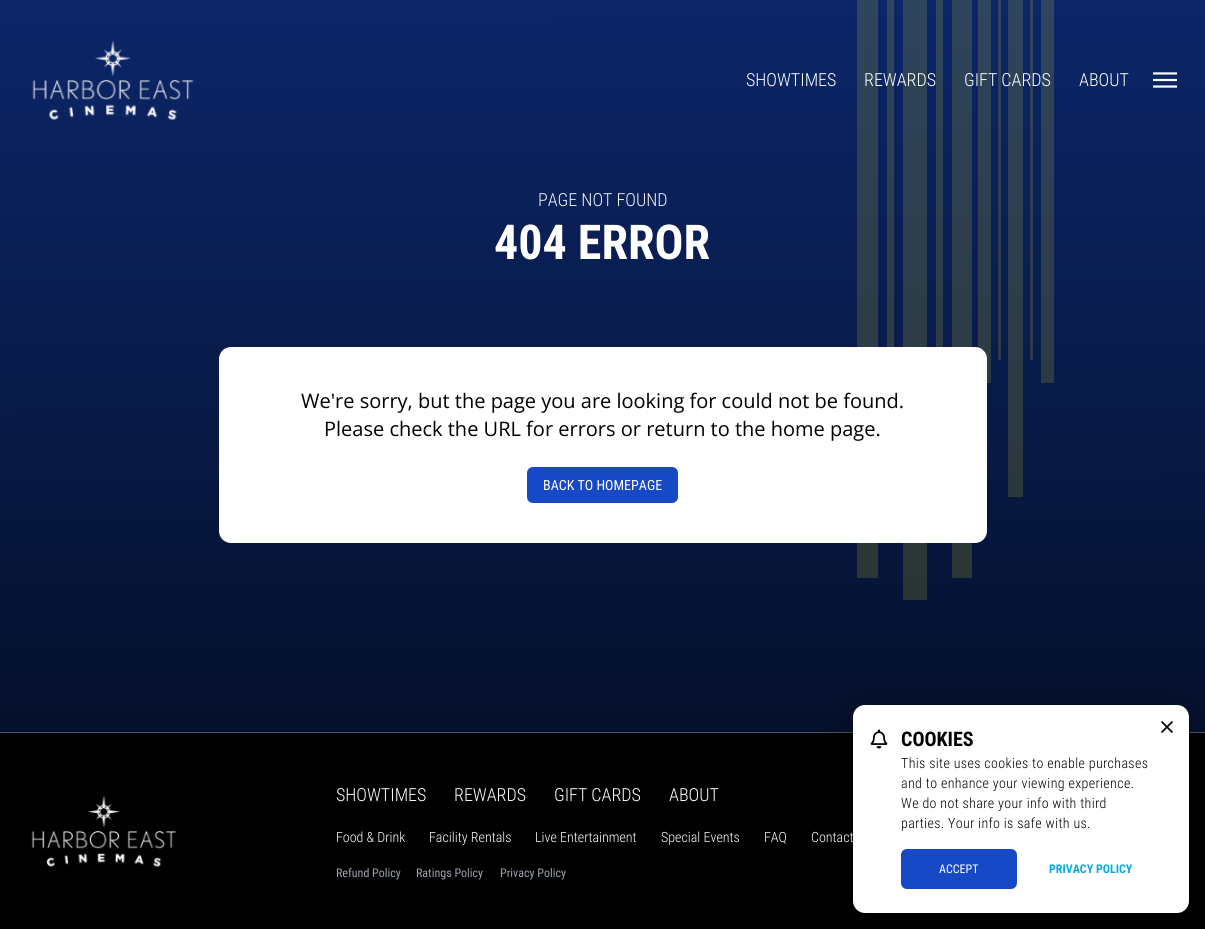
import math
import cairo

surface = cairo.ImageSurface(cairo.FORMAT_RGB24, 1205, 929)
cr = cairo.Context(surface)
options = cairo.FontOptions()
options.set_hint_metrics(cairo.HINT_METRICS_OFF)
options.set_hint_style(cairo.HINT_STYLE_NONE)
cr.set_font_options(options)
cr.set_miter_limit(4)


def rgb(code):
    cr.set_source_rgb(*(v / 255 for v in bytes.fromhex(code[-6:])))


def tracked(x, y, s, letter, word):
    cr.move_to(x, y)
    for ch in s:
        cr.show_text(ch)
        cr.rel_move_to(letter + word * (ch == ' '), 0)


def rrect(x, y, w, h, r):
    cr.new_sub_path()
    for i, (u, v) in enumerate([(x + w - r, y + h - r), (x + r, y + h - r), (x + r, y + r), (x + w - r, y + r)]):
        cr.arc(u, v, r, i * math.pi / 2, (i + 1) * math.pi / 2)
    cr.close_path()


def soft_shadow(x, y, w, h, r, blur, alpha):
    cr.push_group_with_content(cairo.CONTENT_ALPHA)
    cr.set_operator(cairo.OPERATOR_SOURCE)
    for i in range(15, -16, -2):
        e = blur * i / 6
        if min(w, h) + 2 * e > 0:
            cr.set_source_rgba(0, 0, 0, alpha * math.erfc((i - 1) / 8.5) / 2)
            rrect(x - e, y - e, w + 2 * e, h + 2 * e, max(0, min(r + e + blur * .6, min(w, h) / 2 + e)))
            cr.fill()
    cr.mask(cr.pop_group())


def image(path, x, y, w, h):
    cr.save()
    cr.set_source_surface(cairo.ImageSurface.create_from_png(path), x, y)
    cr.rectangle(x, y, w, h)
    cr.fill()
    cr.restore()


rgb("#ffffff")
cr.paint()
gradient = cairo.LinearGradient(602, 0, 603, 929)
gradient.add_color_stop_rgba(0, 0.047, 0.149, 0.412, 1)
gradient.add_color_stop_rgba(1, 0.012, 0.039, 0.106, 1)
cr.set_source(gradient)
cr.rectangle(0, 0, 1205, 732)
cr.fill()
image("img/1.png", 857, 0, 197, 600)
image("img/2.png", 32, 40, 162, 80)
image("img/3.png", 1153, 72, 24, 16)
rgb("#ffffff")
rrect(219, 347, 768, 196, 12)
cr.fill()
rgb("#1748c5")
rrect(527, 467, 151, 36, 6)
cr.fill()
rgb("#000000")
cr.rectangle(0, 733, 1205, 196)
cr.fill()
rgb("#4b5563")
cr.rectangle(0, 732, 1205, 1)
cr.fill()
image("img/4.png", 31, 796, 146, 71)
rgb("#000000")
soft_shadow(850, 709, 336, 208, 12, 15, 0.3)
rgb("#ffffff")
rrect(853, 705, 336, 208, 12)
cr.fill()
cr.new_path()
cr.move_to(1162, 732)
cr.line_to(1172, 722)
cr.move_to(1162, 722)
cr.line_to(1172, 732)
rgb("#000000")
cr.set_line_width(1.7)
cr.set_line_cap(cairo.LINE_CAP_ROUND)
cr.set_line_join(cairo.LINE_JOIN_ROUND)
cr.stroke()
image("img/5.png", 870, 729, 18, 20)
rgb("#1748c5")
rrect(901, 849, 116, 40, 6)
cr.fill()
cr.select_font_face("Roboto Condensed Light")
cr.set_font_size(18)
rgb("#ffffff")
for x, y, s in [
    (746, 86, "SHOWTIMES"),
    (864, 86, "REWARDS"),
    (964, 86, "GIFT CARDS"),
    (1079, 86, "ABOUT"),
]:
    cr.move_to(x, y)
    cr.show_text(s)
rgb("#edf3f8")
cr.move_to(538, 206)
cr.show_text("PAGE NOT FOUND")
cr.select_font_face("Roboto Condensed", cairo.FONT_SLANT_NORMAL, cairo.FONT_WEIGHT_BOLD)
cr.set_font_size(48)
rgb("#ffffff")
cr.move_to(494, 259)
cr.show_text("404 ERROR")
cr.select_font_face("Open Sans")
cr.set_font_size(20)
rgb("#000000")
cr.move_to(301, 408)
cr.show_text("We're sorry, but the page you are looking for could not be found.")
cr.move_to(324, 436)
cr.show_text("Please check the URL for errors or return to the home page.")
cr.select_font_face("Roboto Condensed")
cr.set_font_size(14)
rgb("#ffffff")
cr.move_to(543, 490)
cr.show_text("BACK TO HOMEPAGE")
cr.select_font_face("Roboto Condensed Light")
cr.set_font_size(18)
for x, y, s in [
    (336, 801, "SHOWTIMES"),
    (454, 801, "REWARDS"),
    (554, 801, "GIFT CARDS"),
    (669, 801, "ABOUT"),
]:
    cr.move_to(x, y)
    cr.show_text(s)
cr.set_font_size(14)
for x, y, s in [
    (336, 842, "Food & Drink"),
    (429, 842, "Facility Rentals"),
    (535, 842, "Live Entertainment"),
    (661, 842, "Special Events"),
    (764, 842, "FAQ"),
    (811, 842, "Contact"),
]:
    cr.move_to(x, y)
    cr.show_text(s)
cr.select_font_face("Roboto Condensed")
cr.set_font_size(12)
rgb("#9ca3af")
for x, y, s in [
    (336, 877, "Refund Policy"),
    (416, 877, "Ratings Policy"),
    (500, 877, "Privacy Policy"),
]:
    cr.move_to(x, y)
    cr.show_text(s)
cr.select_font_face("Roboto Condensed", cairo.FONT_SLANT_NORMAL, cairo.FONT_WEIGHT_BOLD)
cr.set_font_size(20)
rgb("#000000")
cr.move_to(901, 746)
cr.show_text("COOKIES")
cr.select_font_face("Roboto Condensed Light")
cr.set_font_size(14)
for x, y, s in [
    (901, 768, "This site uses cookies to enable purchases"),
    (901, 788, "and to enhance your viewing experience."),
    (901, 808, "We do not share your info with third"),
    (901, 828, "parties. Your info is safe with us."),
]:
    tracked(x, y, s, 0.35, 0)
cr.select_font_face("Roboto Condensed")
cr.set_font_size(12)
rgb("#ffffff")
cr.move_to(939, 873)
cr.show_text("ACCEPT")
cr.select_font_face("Roboto Condensed", cairo.FONT_SLANT_NORMAL, cairo.FONT_WEIGHT_BOLD)
rgb("#03abe0")
cr.move_to(1049, 873)
cr.show_text("PRIVACY POLICY")
surface.write_to_png("page.png")
